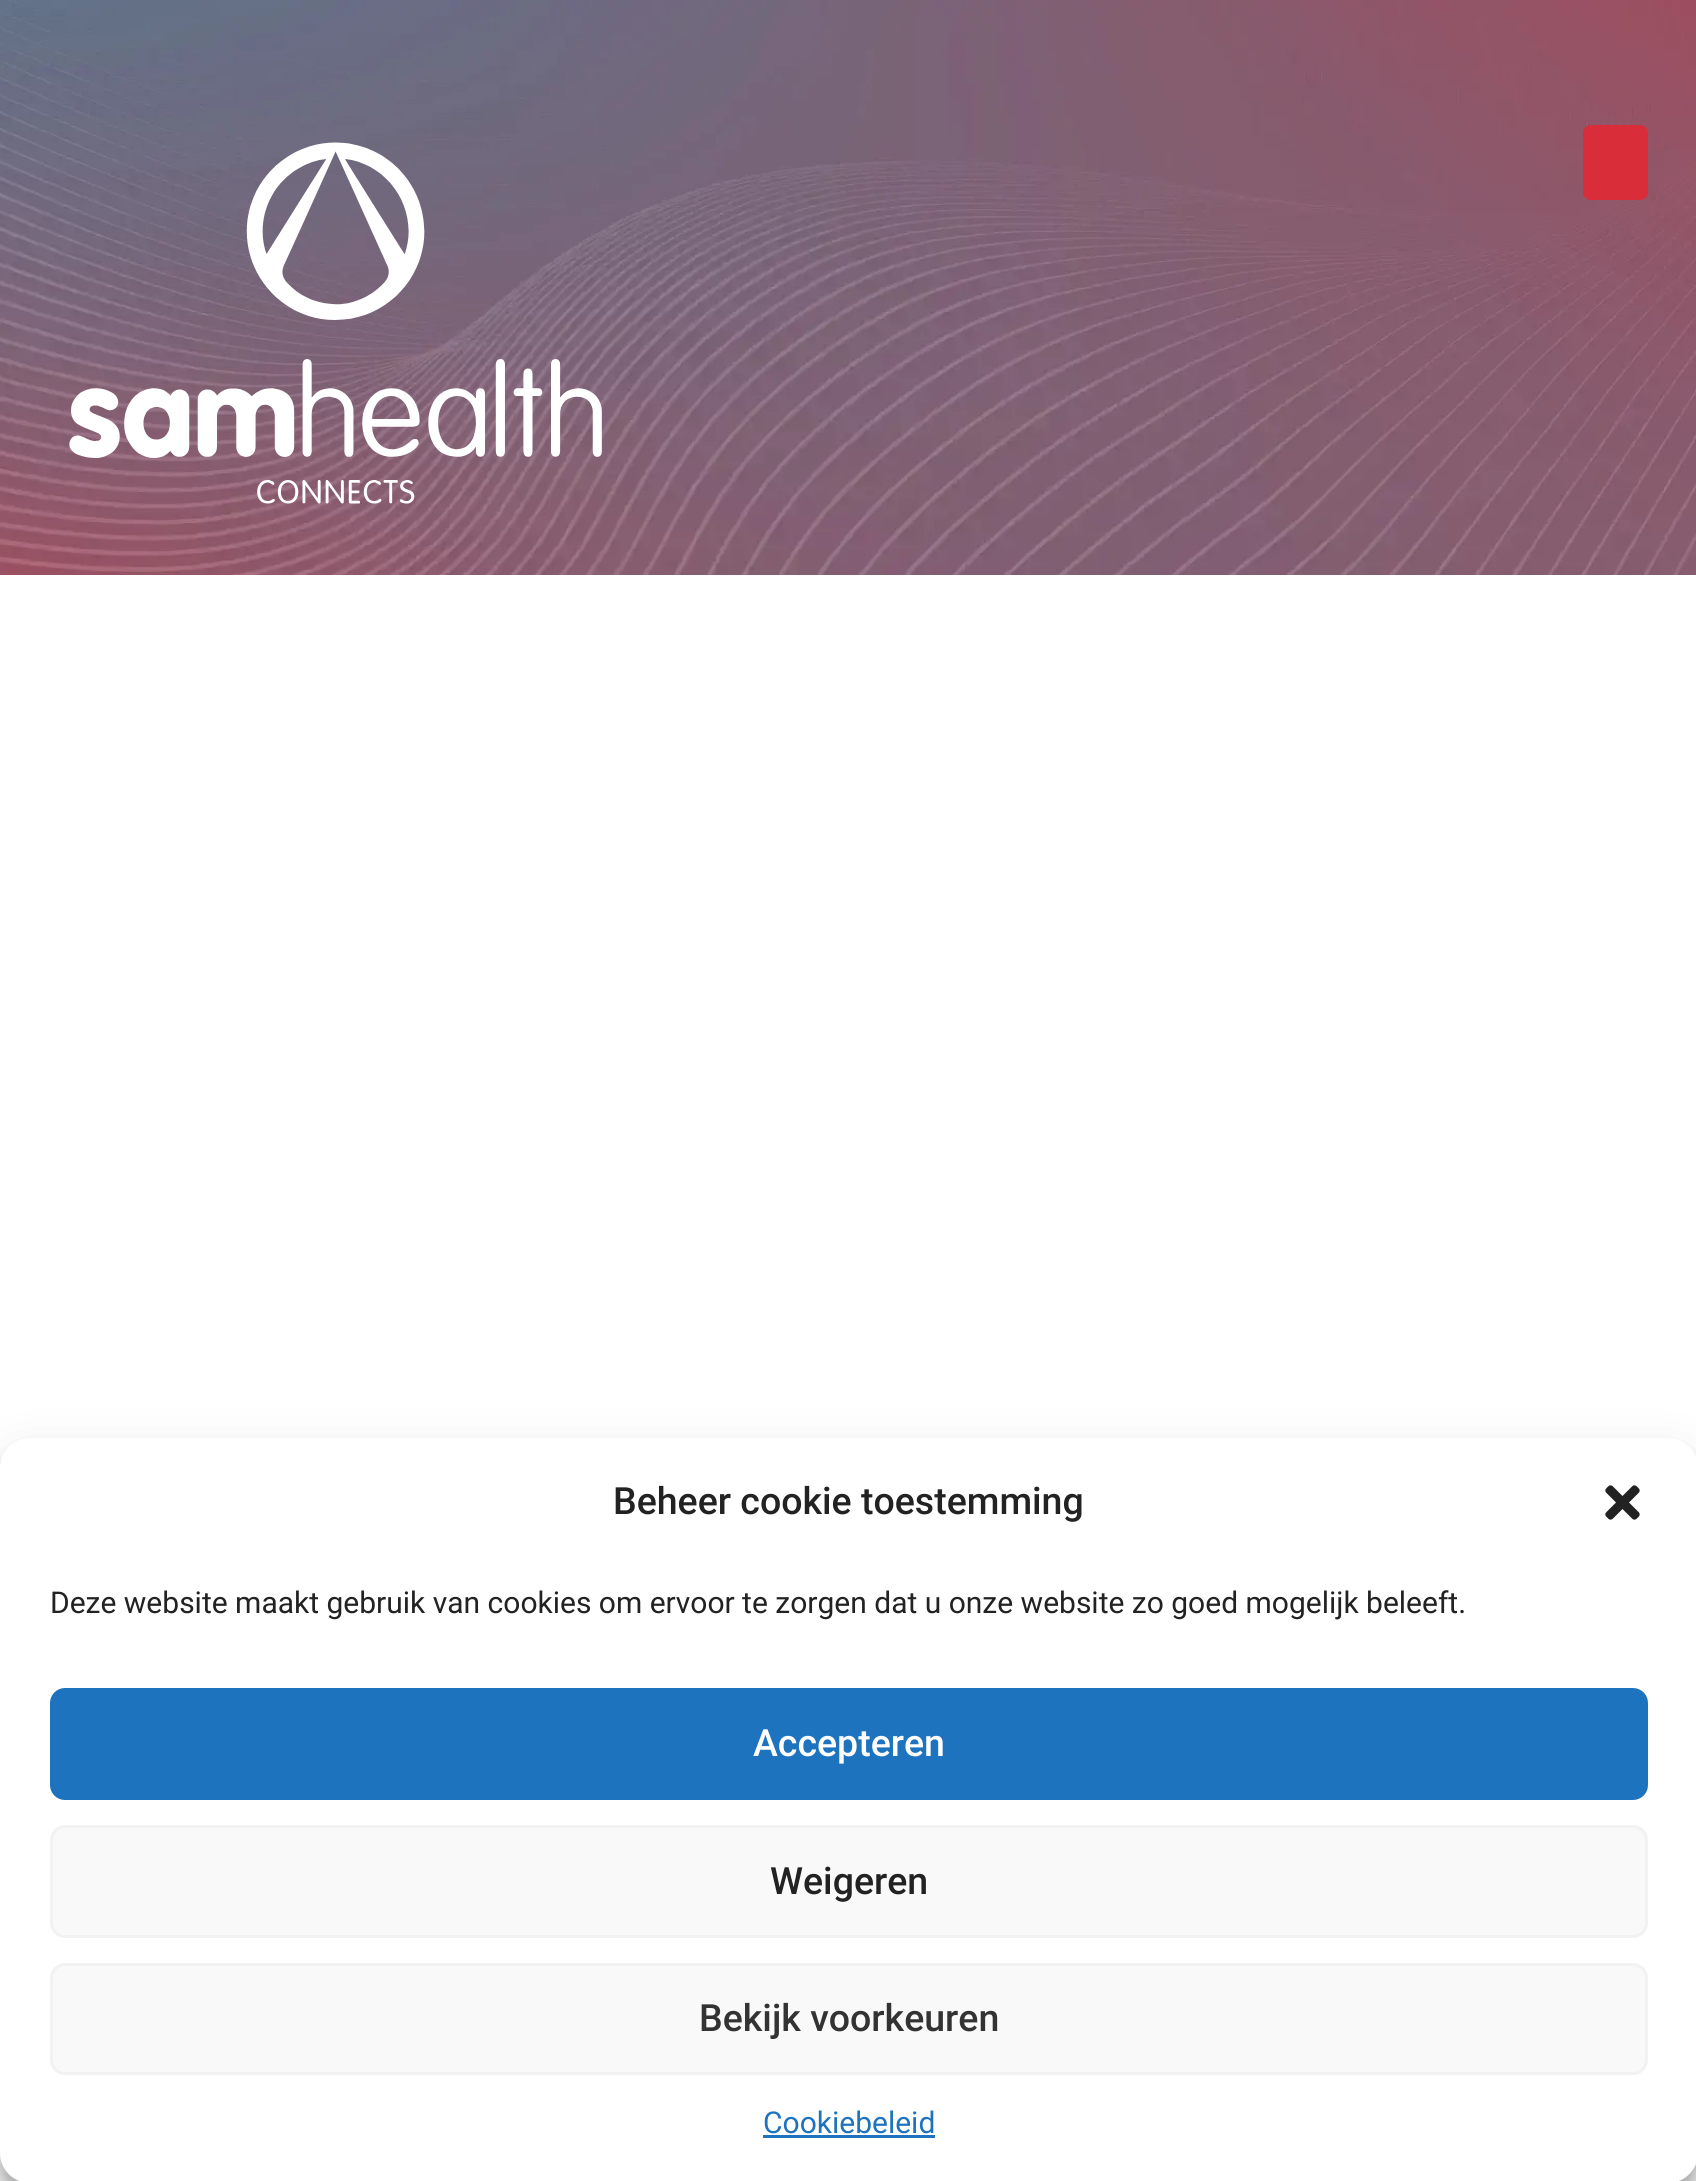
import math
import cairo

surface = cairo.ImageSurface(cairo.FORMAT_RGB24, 1696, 2181)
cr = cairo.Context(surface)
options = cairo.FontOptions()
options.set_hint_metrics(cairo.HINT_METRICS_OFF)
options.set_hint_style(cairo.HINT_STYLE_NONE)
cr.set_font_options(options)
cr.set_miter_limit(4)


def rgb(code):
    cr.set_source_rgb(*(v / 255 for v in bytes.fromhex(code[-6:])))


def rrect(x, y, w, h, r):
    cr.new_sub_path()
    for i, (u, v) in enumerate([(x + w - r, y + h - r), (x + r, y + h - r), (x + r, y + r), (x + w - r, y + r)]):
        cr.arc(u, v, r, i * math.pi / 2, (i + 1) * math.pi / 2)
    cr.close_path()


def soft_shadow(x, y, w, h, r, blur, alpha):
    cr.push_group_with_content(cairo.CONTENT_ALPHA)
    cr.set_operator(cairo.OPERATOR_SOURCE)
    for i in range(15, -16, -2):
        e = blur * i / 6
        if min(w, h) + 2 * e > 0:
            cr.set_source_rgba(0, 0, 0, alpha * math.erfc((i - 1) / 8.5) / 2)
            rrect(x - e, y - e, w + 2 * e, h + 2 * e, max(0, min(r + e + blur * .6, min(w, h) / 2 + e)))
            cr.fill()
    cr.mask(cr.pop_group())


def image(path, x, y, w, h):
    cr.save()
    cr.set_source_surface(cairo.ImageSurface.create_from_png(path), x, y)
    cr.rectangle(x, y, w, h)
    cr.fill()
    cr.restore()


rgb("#ffffff")
cr.paint()
image("img/1.png", 0, 0, 1696, 575)
image("img/2.png", 69, 142, 533, 362)
rgb("#d92d39")
rrect(1583, 125, 65, 75, 8)
cr.fill()
rgb("#000000")
soft_shadow(0, 1453, 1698, 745, 30, 7.5, 0.23)
soft_shadow(0, 1463, 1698, 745, 30, 25, 0.19)
rgb("#ffffff")
rrect(0, 1438, 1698, 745, 30)
cr.fill()
image("img/3.png", 1605, 1485, 35, 35)
rgb("#1e73be")
rrect(51.5, 1689.5, 1595, 109, 13.5)
cr.fill_preserve()
cr.set_line_width(3)
cr.stroke()
rgb("#f9f9f9")
rrect(51.5, 1826.5, 1595, 110, 13.5)
cr.fill_preserve()
rgb("#f2f2f2")
cr.stroke()
rgb("#f9f9f9")
rrect(51.5, 1964.5, 1595, 109, 13.5)
cr.fill_preserve()
rgb("#f2f2f2")
cr.stroke()
rgb("#1e73be")
cr.rectangle(763, 2135, 172, 3)
cr.fill()
cr.select_font_face("Roboto Medium")
cr.set_font_size(37.5)
rgb("#222222")
cr.move_to(613, 1514)
cr.show_text("Beheer cookie toestemming")
cr.select_font_face("Roboto")
cr.set_font_size(30)
cr.move_to(50, 1613)
cr.show_text("Deze website maakt gebruik van cookies om ervoor te zorgen dat u onze website zo goed mogelijk beleeft.")
cr.select_font_face("Roboto Medium")
cr.set_font_size(37.5)
rgb("#ffffff")
cr.move_to(753, 1756)
cr.show_text("Accepteren")
rgb("#222222")
cr.move_to(770, 1894)
cr.show_text("Weigeren")
rgb("#333333")
cr.move_to(699, 2031)
cr.show_text("Bekijk voorkeuren")
cr.select_font_face("Roboto")
cr.set_font_size(30)
rgb("#1e73be")
cr.move_to(763, 2133)
cr.show_text("Cookiebeleid")
surface.write_to_png("page.png")
